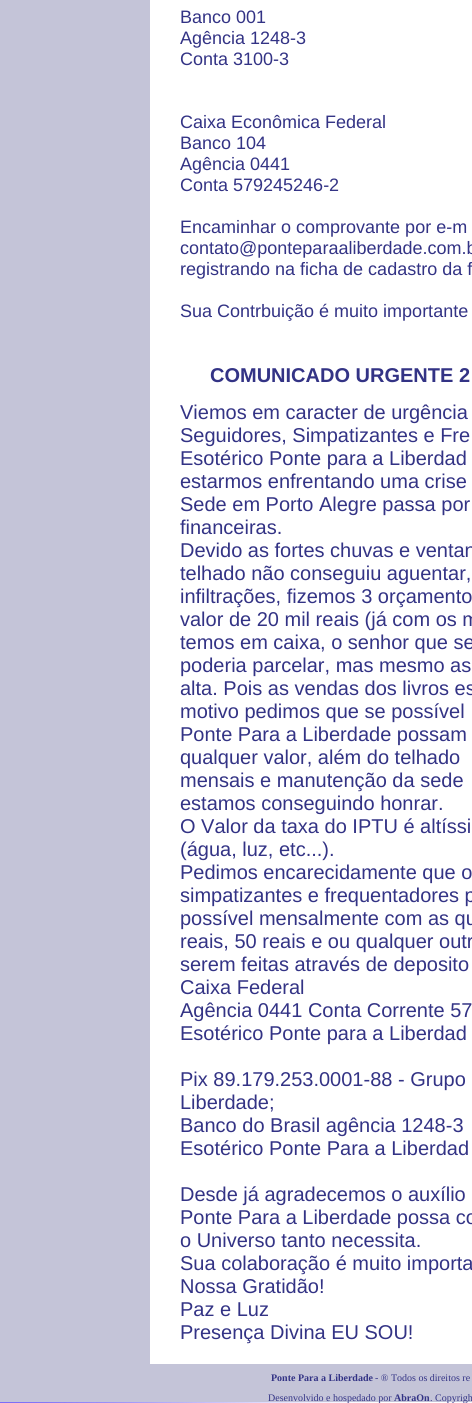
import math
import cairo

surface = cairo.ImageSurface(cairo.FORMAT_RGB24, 472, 1403)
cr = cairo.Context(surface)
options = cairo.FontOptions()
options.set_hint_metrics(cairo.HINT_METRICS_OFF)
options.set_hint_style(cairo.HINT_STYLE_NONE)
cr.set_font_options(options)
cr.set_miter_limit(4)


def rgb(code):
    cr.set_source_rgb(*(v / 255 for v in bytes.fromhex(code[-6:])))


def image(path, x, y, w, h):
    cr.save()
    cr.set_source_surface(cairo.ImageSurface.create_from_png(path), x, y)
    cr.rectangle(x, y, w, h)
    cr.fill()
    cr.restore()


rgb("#ffffff")
cr.paint()
image("img/1.png", 0, 1402, 472, 1)
rgb("#c4c4d8")
cr.rectangle(0, 0, 472, 1402)
cr.fill()
rgb("#ffffff")
cr.rectangle(150, 0, 322, 1364)
cr.fill()
cr.select_font_face("Liberation Sans")
cr.set_font_size(18)
rgb("#333385")
for x, y, s in [
    (180, 23, "Banco 001"),
    (180, 44, "Agência 1248-3"),
    (180, 65, "Conta 3100-3"),
    (180, 128, "Caixa Econômica Federal"),
    (180, 149, "Banco 104"),
    (180, 170, "Agência 0441"),
    (180, 191, "Conta 579245246-2"),
    (180, 233, "Encaminhar o comprovante por e-m"),
    (180, 254, "contato@ponteparaaliberdade.com.b"),
    (180, 275, "registrando na ficha de cadastro da f"),
    (180, 317, "Sua Contrbuição é muito importante"),
]:
    cr.move_to(x, y)
    cr.show_text(s)
cr.select_font_face("Liberation Sans", cairo.FONT_SLANT_NORMAL, cairo.FONT_WEIGHT_BOLD)
cr.set_font_size(20)
cr.move_to(210, 382)
cr.show_text("COMUNICADO URGENTE 2")
cr.select_font_face("Liberation Sans")
for x, y, s in [
    (180, 419, "Viemos em caracter de urgência"),
    (180, 442, "Seguidores, Simpatizantes e Fre"),
    (180, 465, "Esotérico Ponte para a Liberdad"),
    (180, 488, "estarmos enfrentando uma crise"),
    (180, 511, "Sede em Porto Alegre passa por"),
    (180, 534, "financeiras."),
    (180, 557, "Devido as fortes chuvas e ventan"),
    (180, 580, "telhado não conseguiu aguentar,"),
    (180, 603, "infiltrações, fizemos 3 orçamento"),
    (180, 626, "valor de 20 mil reais (já com os m"),
    (180, 649, "temos em caixa, o senhor que se"),
    (180, 672, "poderia parcelar, mas mesmo as"),
    (180, 695, "alta. Pois as vendas dos livros es"),
    (180, 718, "motivo pedimos que se possível"),
    (180, 741, "Ponte Para a Liberdade possam"),
    (180, 764, "qualquer valor, além do telhado"),
    (180, 787, "mensais e manutenção da sede"),
    (180, 810, "estamos conseguindo honrar."),
    (180, 833, "O Valor da taxa do IPTU é altíssi"),
    (180, 856, "(água, luz, etc...)."),
    (180, 879, "Pedimos encarecidamente que o"),
    (180, 902, "simpatizantes e frequentadores p"),
    (180, 925, "possível mensalmente com as qu"),
    (180, 948, "reais, 50 reais e ou qualquer outr"),
    (180, 971, "serem feitas através de deposito"),
    (180, 994, "Caixa Federal"),
    (180, 1017, "Agência 0441 Conta Corrente 57"),
    (180, 1040, "Esotérico Ponte para a Liberdad"),
    (180, 1086, "Pix 89.179.253.0001-88 - Grupo"),
    (180, 1109, "Liberdade;"),
    (180, 1132, "Banco do Brasil agência 1248-3"),
    (180, 1155, "Esotérico Ponte Para a Liberdad"),
    (180, 1201, "Desde já agradecemos o auxílio"),
    (180, 1224, "Ponte Para a Liberdade possa co"),
    (180, 1247, "o Universo tanto necessita."),
    (180, 1270, "Sua colaboração é muito importa"),
    (180, 1293, "Nossa Gratidão!"),
    (180, 1316, "Paz e Luz"),
    (180, 1339, "Presença Divina EU SOU!"),
]:
    cr.move_to(x, y)
    cr.show_text(s)
cr.select_font_face("Liberation Serif", cairo.FONT_SLANT_NORMAL, cairo.FONT_WEIGHT_BOLD)
cr.set_font_size(10)
cr.move_to(271, 1381)
cr.show_text("Ponte Para a Liberdade")
cr.select_font_face("Liberation Serif")
cr.move_to(375, 1381)
cr.show_text("- ® Todos os direitos re")
cr.move_to(268, 1401)
cr.show_text("Desenvolvido e hospedado por")
cr.select_font_face("Liberation Serif", cairo.FONT_SLANT_NORMAL, cairo.FONT_WEIGHT_BOLD)
cr.move_to(394, 1401)
cr.show_text("AbraOn")
cr.select_font_face("Liberation Serif")
cr.move_to(430, 1401)
cr.show_text(". Copyrigh")
surface.write_to_png("page.png")
